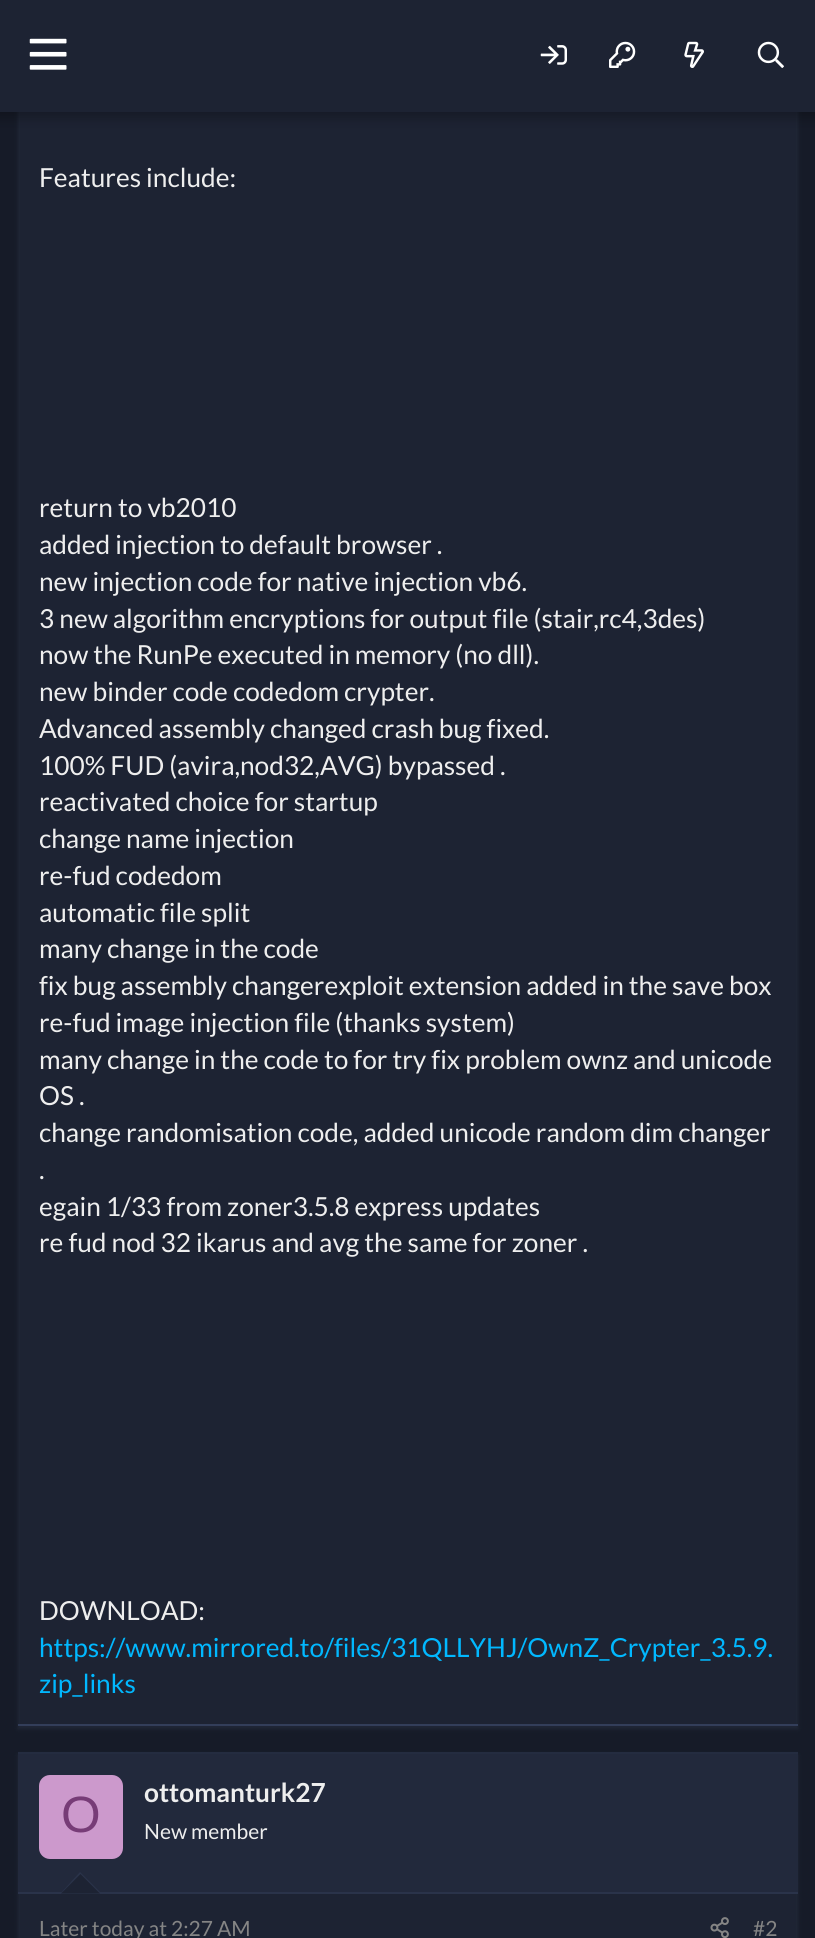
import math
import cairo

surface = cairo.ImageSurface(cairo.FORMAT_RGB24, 815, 1938)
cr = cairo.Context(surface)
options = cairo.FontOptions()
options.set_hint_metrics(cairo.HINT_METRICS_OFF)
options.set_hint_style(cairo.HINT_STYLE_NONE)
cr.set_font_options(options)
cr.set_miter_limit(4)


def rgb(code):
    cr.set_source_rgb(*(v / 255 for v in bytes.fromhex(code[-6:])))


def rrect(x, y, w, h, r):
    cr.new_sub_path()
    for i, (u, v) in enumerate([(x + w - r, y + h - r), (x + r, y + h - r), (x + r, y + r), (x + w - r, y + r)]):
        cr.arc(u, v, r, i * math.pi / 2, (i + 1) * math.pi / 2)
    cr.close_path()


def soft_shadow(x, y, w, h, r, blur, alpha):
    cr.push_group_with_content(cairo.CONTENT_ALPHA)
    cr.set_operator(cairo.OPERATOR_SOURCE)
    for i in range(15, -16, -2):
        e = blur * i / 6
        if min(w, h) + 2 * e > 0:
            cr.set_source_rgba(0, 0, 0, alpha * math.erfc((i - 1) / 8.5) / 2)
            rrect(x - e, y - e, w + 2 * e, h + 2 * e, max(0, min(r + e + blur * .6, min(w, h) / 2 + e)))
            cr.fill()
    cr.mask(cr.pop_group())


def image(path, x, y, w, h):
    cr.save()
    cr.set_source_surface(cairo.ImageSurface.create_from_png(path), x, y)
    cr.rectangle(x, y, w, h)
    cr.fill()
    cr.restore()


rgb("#161b28")
cr.paint()
rgb("#6e81af")
soft_shadow(18, -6, 780, 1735, 0, 2, 0.12)
rgb("#1d2333")
cr.rectangle(20, 112, 776, 1612)
cr.fill()
rgb("#000000")
soft_shadow(-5, -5, 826, 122, 0, 7, 0.3)
rgb("#1d2333")
cr.rectangle(0, 0, 815, 112)
cr.fill()
image("img/1.png", 29, 38, 38, 32)
image("img/2.png", 540, 45, 27, 20)
image("img/3.png", 609, 41, 27, 27)
image("img/4.png", 684, 41, 20, 27)
image("img/5.png", 757, 41, 27, 27)
rgb("#333e5a")
cr.rectangle(18, 1724, 780, 2)
cr.fill()
rgb("#6e81af")
soft_shadow(18, 1755, 780, 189, 0, 2, 0.12)
for x, y, w, h, color in [
    (20, 1894, 776, 44, "#1d2333"),
    (18, 1752, 780, 2, "#242c40"),
    (18, 1754, 780, 138, "#22293c"),
    (18, 1892, 780, 2, "#2a334a"),
]:
    rgb(color)
    cr.rectangle(x, y, w, h)
    cr.fill()
rgb("#cc99cc")
rrect(39, 1775, 84, 84, 11)
cr.fill()
rgb("#2a334a")
cr.new_path()
cr.move_to(102, 1894)
cr.line_to(60, 1894)
cr.line_to(80, 1872)
cr.close_path()
cr.fill()
rgb("#1d2333")
cr.new_path()
cr.move_to(100, 1893.5)
cr.line_to(61, 1893.5)
cr.line_to(80.5, 1874)
cr.close_path()
cr.fill()
image("img/6.png", 710, 1917, 19, 21)
cr.select_font_face("Lato")
cr.set_font_size(26.25)
rgb("#eeeeee")
for x, y, s in [
    (39, 187, "Features include:"),
    (39, 517, "return to vb2010"),
    (39, 554, "added injection to default browser ."),
    (39, 591, "new injection code for native injection vb6."),
    (39, 628, "3 new algorithm encryptions for output file (stair,rc4,3des)"),
    (39, 664, "now the RunPe executed in memory (no dll)."),
    (39, 701, "new binder code codedom crypter."),
    (39, 738, "Advanced assembly changed crash bug fixed."),
    (39, 775, "100% FUD (avira,nod32,AVG) bypassed ."),
    (39, 811, "reactivated choice for startup"),
    (39, 848, "change name injection"),
    (39, 885, "re-fud codedom"),
    (39, 922, "automatic file split"),
    (39, 958, "many change in the code"),
    (39, 995, "fix bug assembly changerexploit extension added in the save box"),
    (39, 1032, "re-fud image injection file (thanks system)"),
    (39, 1069, "many change in the code to for try fix problem ownz and unicode"),
    (39, 1105, "OS ."),
    (39, 1142, "change randomisation code, added unicode random dim changer"),
    (39, 1179, "."),
    (39, 1216, "egain 1/33 from zoner3.5.8 express updates"),
    (39, 1252, "re fud nod 32 ikarus and avg the same for zoner ."),
    (39, 1620, "DOWNLOAD:"),
]:
    cr.move_to(x, y)
    cr.show_text(s)
rgb("#01b8ff")
cr.move_to(39, 1657)
cr.show_text("https://www.mirrored.to/files/31QLLYHJ/OwnZ_Crypter_3.5.9.")
cr.move_to(39, 1693)
cr.show_text("zip_links")
cr.select_font_face("Liberation Sans")
cr.set_font_size(51)
rgb("#773c77")
cr.move_to(61, 1832)
cr.show_text("O")
cr.select_font_face("Lato", cairo.FONT_SLANT_NORMAL, cairo.FONT_WEIGHT_BOLD)
cr.set_font_size(26.25)
rgb("#eeeeee")
cr.move_to(144, 1802)
cr.show_text("ottomanturk27")
cr.select_font_face("Lato")
cr.set_font_size(21)
cr.move_to(144, 1839)
cr.show_text("New member")
rgb("#858585")
cr.move_to(39, 1936)
cr.show_text("Later today at 2:27 AM")
cr.move_to(753, 1936)
cr.show_text("#2")
surface.write_to_png("page.png")
